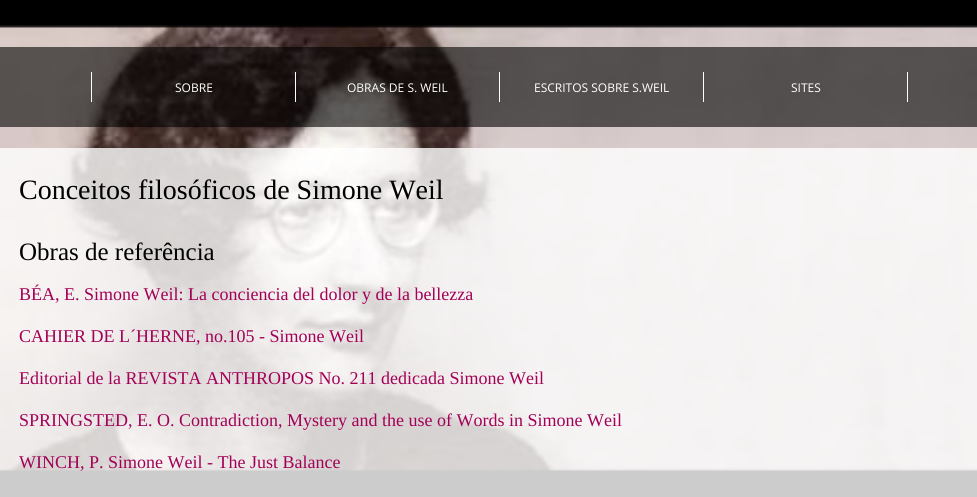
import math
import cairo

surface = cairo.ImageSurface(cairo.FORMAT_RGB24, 977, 497)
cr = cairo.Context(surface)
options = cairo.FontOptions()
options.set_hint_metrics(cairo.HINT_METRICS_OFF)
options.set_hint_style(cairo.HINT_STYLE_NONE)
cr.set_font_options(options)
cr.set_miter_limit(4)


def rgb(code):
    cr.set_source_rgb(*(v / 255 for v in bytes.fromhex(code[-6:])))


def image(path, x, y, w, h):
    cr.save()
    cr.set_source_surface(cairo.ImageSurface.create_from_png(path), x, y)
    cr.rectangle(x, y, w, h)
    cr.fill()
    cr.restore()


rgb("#000000")
cr.paint()
image("img/1.png", 0, 25, 977, 446)
cr.set_source_rgba(0, 0, 0, 0.6)
cr.rectangle(0, 47, 977, 80)
cr.fill()
rgb("#ffffff")
cr.rectangle(91, 72, 1, 30)
cr.rectangle(295, 72, 1, 30)
cr.rectangle(499, 72, 1, 30)
cr.rectangle(703, 72, 1, 30)
cr.rectangle(907, 72, 1, 30)
cr.fill()
cr.set_source_rgba(1, 1, 1, 0.8)
cr.rectangle(0, 148, 977, 349)
cr.fill()
cr.select_font_face("Open Sans")
cr.set_font_size(12)
rgb("#ffffff")
for x, y, s in [
    (175, 92, "SOBRE"),
    (347, 92, "OBRAS DE S. WEIL"),
    (534, 92, "ESCRITOS SOBRE S.WEIL"),
    (791, 92, "SITES"),
]:
    cr.move_to(x, y)
    cr.show_text(s)
cr.select_font_face("Liberation Serif")
cr.set_font_size(28)
rgb("#000000")
cr.move_to(19, 199)
cr.show_text("Conceitos filosóficos de Simone Weil")
cr.set_font_size(25)
cr.move_to(19, 260)
cr.show_text("Obras de referência")
cr.set_font_size(18)
rgb("#a30057")
for x, y, s in [
    (19, 300, "BÉA, E. Simone Weil: La conciencia del dolor y de la bellezza"),
    (19, 342, "CAHIER DE L´HERNE, no.105 - Simone Weil"),
    (19, 384, "Editorial de la REVISTA ANTHROPOS No. 211 dedicada Simone Weil"),
    (19, 426, "SPRINGSTED, E. O. Contradiction, Mystery and the use of Words in Simone Weil"),
    (19, 468, "WINCH, P. Simone Weil - The Just Balance"),
]:
    cr.move_to(x, y)
    cr.show_text(s)
surface.write_to_png("page.png")
